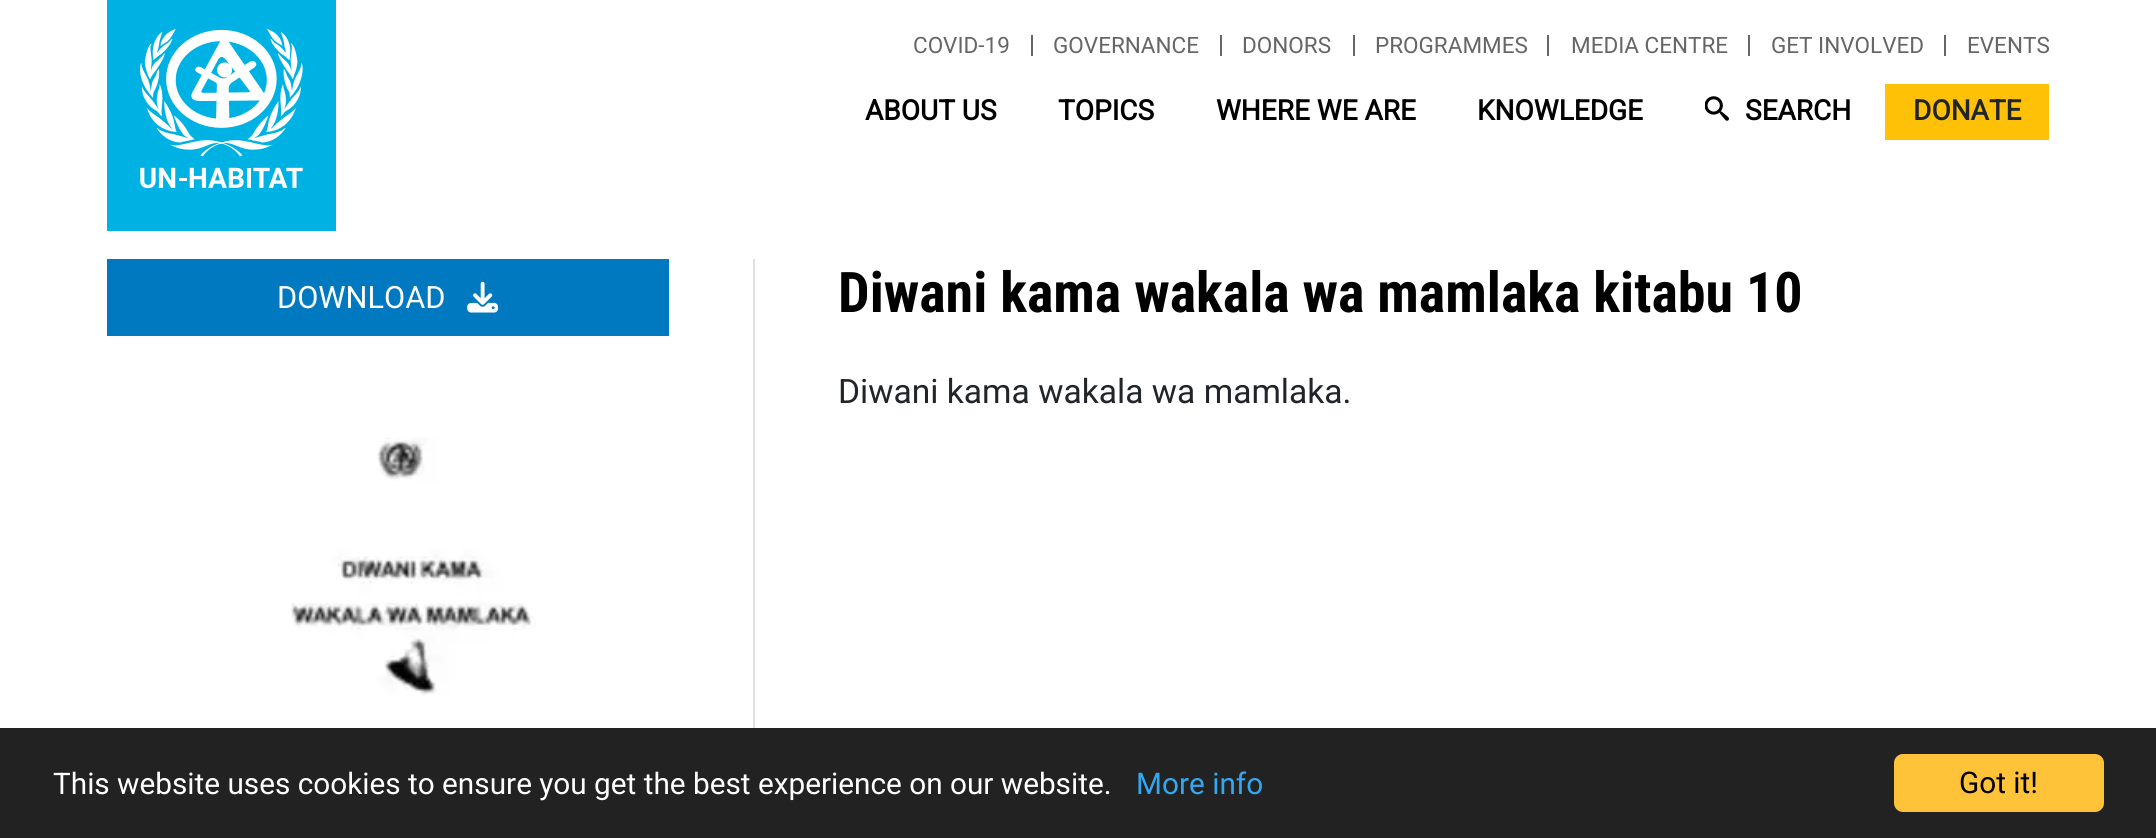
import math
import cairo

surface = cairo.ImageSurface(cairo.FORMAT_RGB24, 2156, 838)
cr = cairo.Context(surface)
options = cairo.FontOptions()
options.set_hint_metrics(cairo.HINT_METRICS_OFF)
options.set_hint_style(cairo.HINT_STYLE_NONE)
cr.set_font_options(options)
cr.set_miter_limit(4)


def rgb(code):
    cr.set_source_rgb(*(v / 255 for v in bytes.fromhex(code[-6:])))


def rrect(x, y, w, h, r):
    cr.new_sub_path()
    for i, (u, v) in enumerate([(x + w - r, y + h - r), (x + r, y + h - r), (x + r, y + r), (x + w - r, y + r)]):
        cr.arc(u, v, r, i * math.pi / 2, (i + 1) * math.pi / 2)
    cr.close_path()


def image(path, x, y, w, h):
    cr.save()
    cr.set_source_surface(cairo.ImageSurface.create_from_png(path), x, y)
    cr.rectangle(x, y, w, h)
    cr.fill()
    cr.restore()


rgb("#ffffff")
cr.paint()
for x, y, w, h, color in [
    (1031, 35, 2, 21, "#666666"),
    (1220, 35, 2, 21, "#666666"),
    (1353, 35, 2, 21, "#666666"),
    (1547, 35, 2, 21, "#666666"),
    (1748, 35, 2, 21, "#666666"),
    (1944, 35, 2, 21, "#666666"),
    (107, 0, 229, 231, "#00b2e3"),
]:
    rgb(color)
    cr.rectangle(x, y, w, h)
    cr.fill()
image("img/1.png", 140, 29, 163, 160)
image("img/2.png", 1705, 96, 24, 25)
for x, y, w, h, color in [
    (1885, 84, 164, 56, "#ffc107"),
    (753, 259, 2, 469, "#dfdfdf"),
    (107, 259, 562, 77, "#0079c0"),
]:
    rgb(color)
    cr.rectangle(x, y, w, h)
    cr.fill()
image("img/3.png", 467, 281, 32, 32)
image("img/4.png", 291, 437, 245, 291)
rgb("#222222")
cr.rectangle(0, 728, 2156, 110)
cr.fill()
rgb("#fec339")
rrect(1894, 754, 210, 58, 9)
cr.fill()
cr.select_font_face("Roboto")
cr.set_font_size(22.5)
rgb("#666666")
for x, y, s in [
    (913, 53, "COVID-19"),
    (1053, 53, "GOVERNANCE"),
    (1242, 53, "DONORS"),
    (1375, 53, "PROGRAMMES"),
    (1571, 53, "MEDIA CENTRE"),
    (1771, 53, "GET INVOLVED"),
    (1967, 53, "EVENTS"),
]:
    cr.move_to(x, y)
    cr.show_text(s)
cr.select_font_face("Roboto", cairo.FONT_SLANT_NORMAL, cairo.FONT_WEIGHT_BOLD)
cr.set_font_size(28)
rgb("#000000")
for x, y, s in [
    (865, 120, "ABOUT US"),
    (1058, 120, "TOPICS"),
    (1216, 120, "WHERE WE ARE"),
    (1477, 120, "KNOWLEDGE"),
    (1745, 120, "SEARCH"),
]:
    cr.move_to(x, y)
    cr.show_text(s)
rgb("#212529")
cr.move_to(1913, 120)
cr.show_text("DONATE")
cr.select_font_face("Roboto")
cr.set_font_size(30.75)
rgb("#ffffff")
cr.move_to(277, 308)
cr.show_text("DOWNLOAD")
cr.select_font_face("Roboto Condensed", cairo.FONT_SLANT_NORMAL, cairo.FONT_WEIGHT_BOLD)
cr.set_font_size(56)
rgb("#000000")
cr.move_to(838, 312)
cr.show_text("Diwani kama wakala wa mamlaka kitabu 10")
cr.select_font_face("Roboto")
cr.set_font_size(33.6)
rgb("#212529")
cr.move_to(838, 403)
cr.show_text("Diwani kama wakala wa mamlaka.")
cr.set_font_size(29.75)
rgb("#ffffff")
cr.move_to(53, 794)
cr.show_text("This website uses cookies to ensure you get the best experience on our website.")
rgb("#31a8f0")
cr.move_to(1136, 794)
cr.show_text("More info")
rgb("#000000")
cr.move_to(1959, 793)
cr.show_text("Got it!")
surface.write_to_png("page.png")
